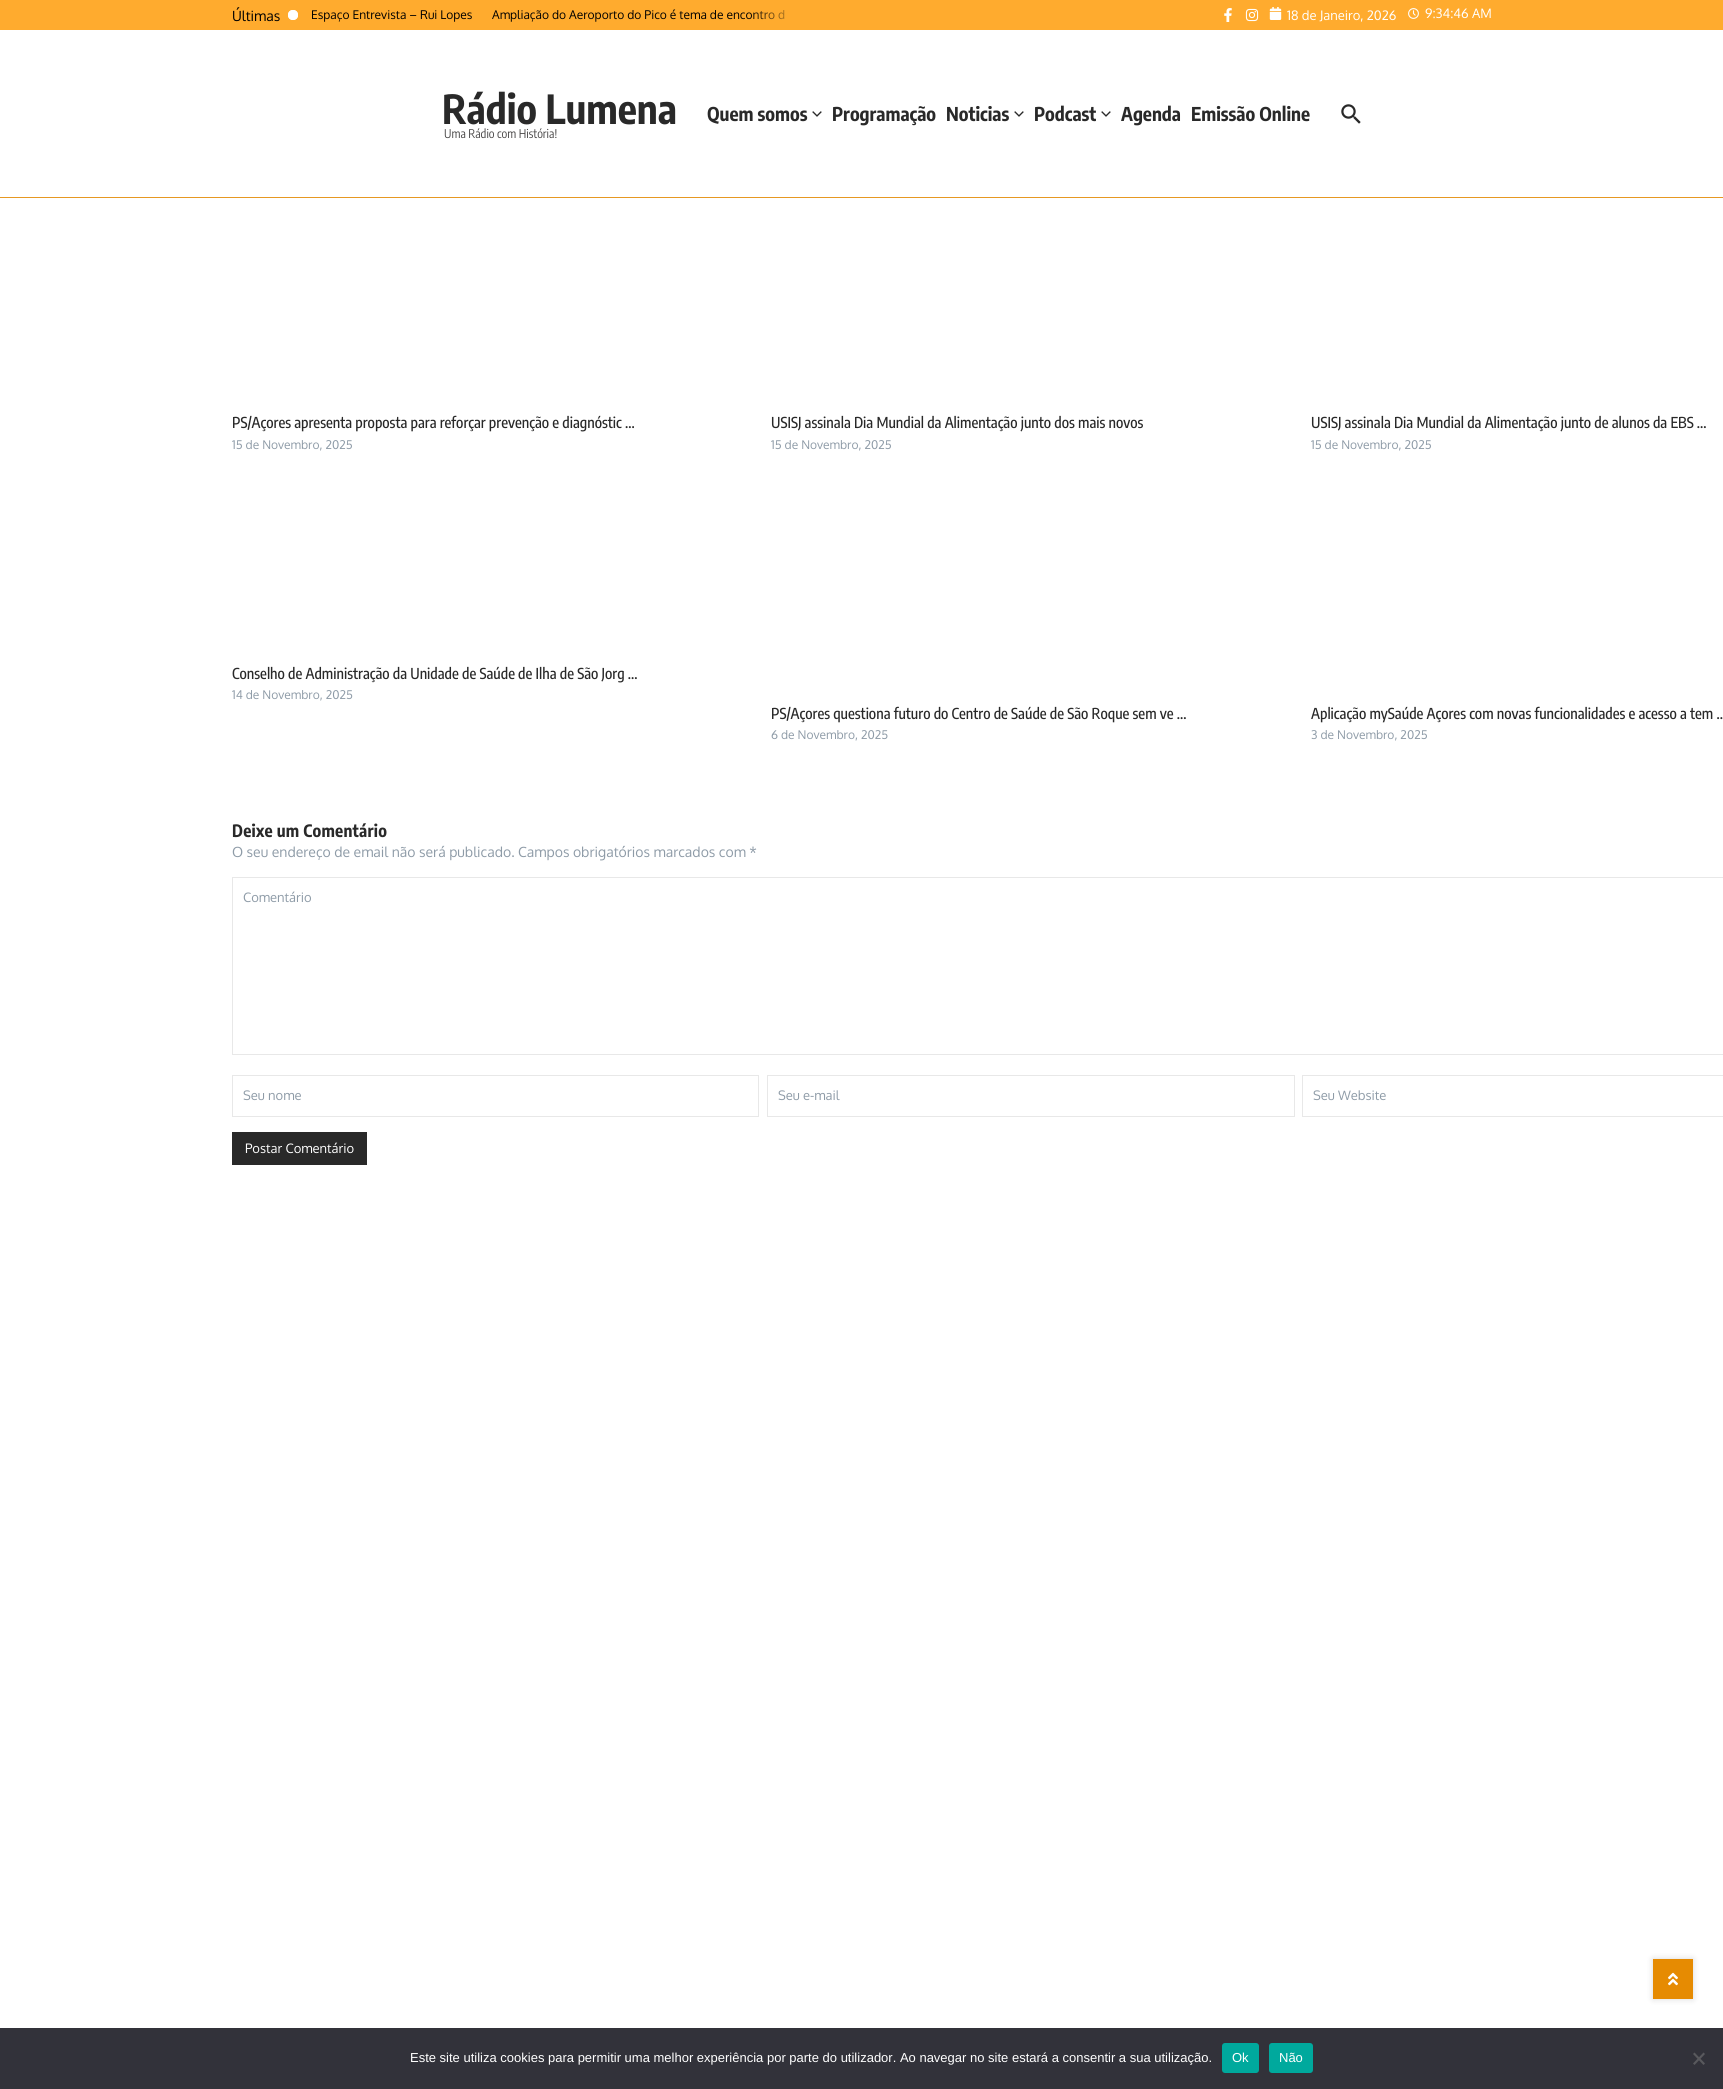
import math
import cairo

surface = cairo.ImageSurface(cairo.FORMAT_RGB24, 1723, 2089)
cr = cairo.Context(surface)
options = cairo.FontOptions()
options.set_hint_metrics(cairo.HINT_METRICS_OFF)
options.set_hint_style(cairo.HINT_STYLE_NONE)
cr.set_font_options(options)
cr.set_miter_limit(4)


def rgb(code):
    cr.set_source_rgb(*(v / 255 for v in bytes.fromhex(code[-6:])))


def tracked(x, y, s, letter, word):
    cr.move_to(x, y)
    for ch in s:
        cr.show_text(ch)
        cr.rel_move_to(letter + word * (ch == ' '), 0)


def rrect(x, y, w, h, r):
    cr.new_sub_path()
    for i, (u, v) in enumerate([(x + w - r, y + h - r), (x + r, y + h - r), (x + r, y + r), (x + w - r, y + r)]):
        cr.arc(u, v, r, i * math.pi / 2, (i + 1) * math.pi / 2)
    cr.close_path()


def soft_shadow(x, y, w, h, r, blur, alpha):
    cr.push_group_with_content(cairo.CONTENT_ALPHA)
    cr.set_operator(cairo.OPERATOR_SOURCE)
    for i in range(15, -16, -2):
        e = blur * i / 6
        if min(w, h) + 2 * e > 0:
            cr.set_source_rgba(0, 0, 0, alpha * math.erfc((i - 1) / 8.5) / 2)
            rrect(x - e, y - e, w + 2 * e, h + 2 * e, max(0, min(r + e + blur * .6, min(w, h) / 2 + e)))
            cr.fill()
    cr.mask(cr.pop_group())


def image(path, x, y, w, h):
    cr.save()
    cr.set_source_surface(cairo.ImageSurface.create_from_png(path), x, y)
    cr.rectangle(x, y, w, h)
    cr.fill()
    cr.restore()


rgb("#ffffff")
cr.paint()
rgb("#ffab2e")
cr.rectangle(0, 0, 1723, 30)
cr.fill()
rgb("#ffffff")
cr.arc(293, 15, 4.5, 0, 2 * math.pi)
cr.fill_preserve()
cr.set_line_width(1)
cr.stroke()
cr.arc(293, 15, 4.5, 0, 2 * math.pi)
cr.stroke()
image("img/1.png", 1224, 8, 8, 14)
image("img/2.png", 1245, 8, 14, 14)
image("img/3.png", 1269, 7, 13, 13)
image("img/4.png", 1408, 8, 11, 11)
rgb("#e69822")
cr.rectangle(0, 197, 1723, 1)
cr.fill()
image("img/5.png", 812, 111, 10, 6)
image("img/5.png", 1014, 111, 10, 6)
image("img/5.png", 1101, 111, 10, 6)
image("img/6.png", 1341, 104, 20, 20)
cr.rectangle(232.5, 877.5, 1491, 177)
rgb("#e8e8e8")
cr.stroke()
cr.rectangle(232.5, 1075.5, 526, 41)
cr.stroke()
cr.rectangle(767.5, 1075.5, 527, 41)
cr.stroke()
cr.rectangle(1302.5, 1075.5, 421, 41)
cr.stroke()
rgb("#292929")
cr.rectangle(232, 1132, 135, 33)
cr.fill()
rgb("#000000")
soft_shadow(1653, 1959, 40, 40, 0, 3.5, 0.15)
rgb("#e68b02")
cr.rectangle(1653, 1959, 40, 40)
cr.fill()
image("img/7.png", 1668, 1972, 10, 14)
rgb("#32323a")
cr.rectangle(0, 2028, 1723, 61)
cr.fill()
rgb("#00a99d")
rrect(1222, 2043, 37, 30, 3)
cr.fill()
rrect(1269, 2043, 44, 30, 3)
cr.fill()
rgb("#59595d")
cr.new_path()
cr.move_to(1703.5, 2052.5)
cr.line_to(1705, 2054)
cr.line_to(1694.5, 2065)
cr.line_to(1693, 2063.5)
cr.close_path()
cr.fill()
cr.new_path()
cr.move_to(1693, 2054)
cr.line_to(1694.5, 2052.5)
cr.line_to(1705, 2063.5)
cr.line_to(1703.5, 2065)
cr.close_path()
cr.fill()
cr.select_font_face("Oxygen")
cr.set_font_size(14)
rgb("#000000")
cr.move_to(232, 21)
cr.show_text("Últimas")
cr.set_font_size(12)
cr.move_to(311, 19)
cr.show_text("Espaço Entrevista – Rui Lopes")
cr.move_to(492, 19)
cr.show_text("Ampliação do Aeroporto do Pico é tema de encontro d")
gradient = cairo.LinearGradient(750, 15, 800, 15)
gradient.add_color_stop_rgba(0, 1, 0.671, 0.18, 0)
gradient.add_color_stop_rgba(1, 1, 0.671, 0.18, 1)
cr.set_source(gradient)
cr.rectangle(751, 10, 34, 10)
cr.fill()
cr.set_font_size(13)
rgb("#ffffff")
cr.move_to(1287, 20)
cr.show_text("18 de Janeiro, 2026")
cr.move_to(1425, 18)
cr.show_text("9:34:46 AM")
cr.select_font_face("Encode Sans Condensed", cairo.FONT_SLANT_NORMAL, cairo.FONT_WEIGHT_BOLD)
cr.set_font_size(40)
rgb("#292929")
cr.move_to(442, 124)
cr.show_text("Rádio Lumena")
cr.select_font_face("Encode Sans Condensed")
cr.set_font_size(12)
rgb("#484646")
cr.move_to(444, 138)
cr.show_text("Uma Rádio com História!")
cr.select_font_face("Encode Sans Condensed", cairo.FONT_SLANT_NORMAL, cairo.FONT_WEIGHT_BOLD)
cr.set_font_size(19)
rgb("#292929")
for x, y, s in [
    (707, 121, "Quem somos"),
    (832, 121, "Programação"),
    (946, 121, "Noticias"),
    (1034, 121, "Podcast"),
    (1121, 121, "Agenda"),
    (1191, 121, "Emissão Online"),
]:
    cr.move_to(x, y)
    cr.show_text(s)
cr.select_font_face("Encode Sans Condensed Medium")
cr.set_font_size(15)
cr.move_to(232, 428)
cr.show_text("PS/Açores apresenta proposta para reforçar prevenção e diagnóstic ...")
cr.select_font_face("Oxygen")
cr.set_font_size(12)
rgb("#8e9ba7")
cr.move_to(232, 449)
cr.show_text("15 de Novembro, 2025")
cr.select_font_face("Encode Sans Condensed Medium")
cr.set_font_size(15)
rgb("#292929")
cr.move_to(771, 428)
cr.show_text("USISJ assinala Dia Mundial da Alimentação junto dos mais novos")
cr.select_font_face("Oxygen")
cr.set_font_size(12)
rgb("#8e9ba7")
cr.move_to(771, 449)
cr.show_text("15 de Novembro, 2025")
cr.select_font_face("Encode Sans Condensed Medium")
cr.set_font_size(15)
rgb("#292929")
cr.move_to(1311, 428)
cr.show_text("USISJ assinala Dia Mundial da Alimentação junto de alunos da EBS ...")
cr.select_font_face("Oxygen")
cr.set_font_size(12)
rgb("#8e9ba7")
cr.move_to(1311, 449)
cr.show_text("15 de Novembro, 2025")
cr.select_font_face("Encode Sans Condensed Medium")
cr.set_font_size(15)
rgb("#292929")
cr.move_to(232, 679)
cr.show_text("Conselho de Administração da Unidade de Saúde de Ilha de São Jorg ...")
cr.select_font_face("Oxygen")
cr.set_font_size(12)
rgb("#8e9ba7")
cr.move_to(232, 699)
cr.show_text("14 de Novembro, 2025")
cr.select_font_face("Encode Sans Condensed Medium")
cr.set_font_size(15)
rgb("#292929")
cr.move_to(771, 719)
cr.show_text("PS/Açores questiona futuro do Centro de Saúde de São Roque sem ve ...")
cr.select_font_face("Oxygen")
cr.set_font_size(12)
rgb("#8e9ba7")
cr.move_to(771, 739)
cr.show_text("6 de Novembro, 2025")
cr.select_font_face("Encode Sans Condensed Medium")
cr.set_font_size(15)
rgb("#292929")
cr.move_to(1311, 719)
cr.show_text("Aplicação mySaúde Açores com novas funcionalidades e acesso a tem ..")
cr.select_font_face("Oxygen")
cr.set_font_size(12)
rgb("#8e9ba7")
cr.move_to(1311, 739)
cr.show_text("3 de Novembro, 2025")
cr.select_font_face("Encode Sans Condensed", cairo.FONT_SLANT_NORMAL, cairo.FONT_WEIGHT_BOLD)
cr.set_font_size(17)
rgb("#292929")
tracked(232, 837, "Deixe um Comentário", 0.25, 0)
cr.select_font_face("Oxygen")
cr.set_font_size(14)
rgb("#8e9ba7")
cr.move_to(232, 857)
cr.show_text("O seu endereço de email não será publicado. Campos obrigatórios marcados com *")
cr.set_font_size(13)
for x, y, s in [
    (243, 902, "Comentário"),
    (243, 1100, "Seu nome"),
    (778, 1100, "Seu e-mail"),
    (1313, 1100, "Seu Website"),
]:
    cr.move_to(x, y)
    cr.show_text(s)
rgb("#ffffff")
cr.move_to(245, 1153)
cr.show_text("Postar Comentário")
cr.select_font_face("Liberation Sans")
for x, y, s in [
    (410, 2062, "Este site utiliza cookies para permitir uma melhor experiência por parte do utilizador. Ao navegar no site estará a consentir a sua utilização."),
    (1232, 2062, "Ok"),
    (1279, 2062, "Não"),
]:
    cr.move_to(x, y)
    cr.show_text(s)
surface.write_to_png("page.png")
